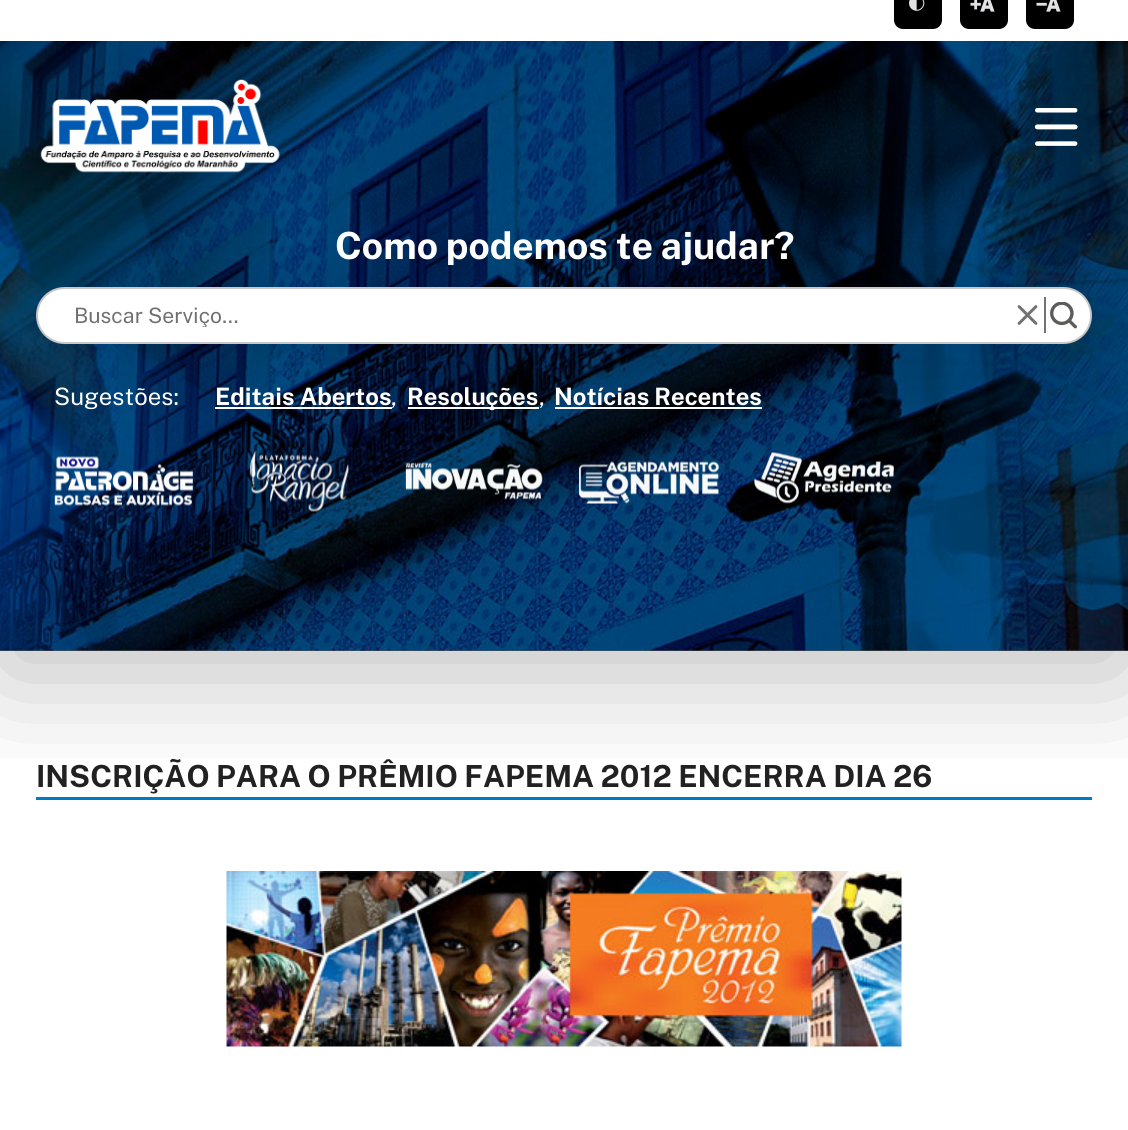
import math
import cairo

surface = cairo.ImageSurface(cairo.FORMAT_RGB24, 1128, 1130)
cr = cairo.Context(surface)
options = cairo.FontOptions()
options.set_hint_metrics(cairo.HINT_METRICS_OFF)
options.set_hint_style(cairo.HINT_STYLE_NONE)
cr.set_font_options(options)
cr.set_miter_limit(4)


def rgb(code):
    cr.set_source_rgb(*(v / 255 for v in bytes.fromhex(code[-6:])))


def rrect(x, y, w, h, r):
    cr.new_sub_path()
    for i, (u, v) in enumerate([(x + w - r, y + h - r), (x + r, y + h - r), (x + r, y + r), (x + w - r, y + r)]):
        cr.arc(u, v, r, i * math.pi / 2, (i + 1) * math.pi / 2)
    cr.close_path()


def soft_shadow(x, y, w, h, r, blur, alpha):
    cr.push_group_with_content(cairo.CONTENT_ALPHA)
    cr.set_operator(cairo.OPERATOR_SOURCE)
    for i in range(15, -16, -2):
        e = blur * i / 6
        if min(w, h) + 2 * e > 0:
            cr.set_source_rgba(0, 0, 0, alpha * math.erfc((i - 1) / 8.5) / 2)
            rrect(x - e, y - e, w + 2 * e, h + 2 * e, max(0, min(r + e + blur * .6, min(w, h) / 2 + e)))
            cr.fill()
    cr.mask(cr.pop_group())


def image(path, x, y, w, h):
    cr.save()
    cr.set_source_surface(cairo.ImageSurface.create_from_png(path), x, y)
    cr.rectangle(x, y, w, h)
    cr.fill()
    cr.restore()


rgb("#ffffff")
cr.paint()
rgb("#595959")
cr.rectangle(0, 650, 1128, 1)
cr.fill()
image("img/1.png", 0, 41, 1128, 610)
rgb("#007bc2")
cr.rectangle(36, 797, 1056, 3)
cr.fill()
cr.save()
cr.rectangle(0, 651, 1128, 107)
cr.clip()
rgb("#000000")
soft_shadow(0, -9, 1128, 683, 0, 60, 0.25)
cr.restore()
rgb("#000000")
rrect(894, -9, 48, 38, 9)
cr.fill()
image("img/2.png", 909, 0, 16, 11)
rrect(960, -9, 48, 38, 9)
cr.fill()
image("img/3.png", 970, 0, 25, 12)
rrect(1026, -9, 48, 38, 9)
cr.fill()
image("img/4.png", 1036, 0, 25, 12)
image("img/5.png", 40, 79, 240, 94)
image("img/6.png", 1035, 108, 43, 38)
rgb("#000000")
soft_shadow(51, 302, 1056, 57, 28.5, 37.5, 0.16)
rgb("#ffffff")
rrect(37, 288, 1054, 55, 27.5)
cr.fill_preserve()
rgb("#c7c7c7")
cr.stroke()
rgb("#727272")
cr.rectangle(1044, 297, 2, 36)
cr.fill()
image("img/7.png", 1017, 305, 21, 20)
image("img/8.png", 1050, 302, 27, 27)
for x, y, w, h, color in [
    (215, 407, 177, 2, "#ffffff"),
    (408, 407, 131, 2, "#ffffff"),
    (555, 407, 207, 2, "#ffffff"),
]:
    rgb(color)
    cr.rectangle(x, y, w, h)
    cr.fill()
image("img/9.png", 54, 456, 139, 50)
image("img/10.png", 250, 450, 99, 62)
image("img/11.png", 405, 462, 138, 38)
image("img/12.png", 579, 461, 140, 43)
image("img/13.png", 754, 452, 140, 52)
image("img/14.png", 226, 871, 676, 176)
cr.select_font_face("Public Sans Thin")
cr.set_font_size(37.4)
cr.move_to(335, 259)
cr.show_text("Como podemos te ajudar?")
cr.save()
cr.rectangle(74, 302, 936, 25)
cr.clip()
cr.select_font_face("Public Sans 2 Thin")
cr.set_font_size(21.25)
rgb("#707070")
cr.move_to(74, 323)
cr.show_text("Buscar Serviço…")
cr.restore()
cr.select_font_face("Public Sans 2 Thin")
cr.set_font_size(24)
cr.move_to(54, 405)
cr.show_text("Sugestões:")
cr.select_font_face("Public Sans Thin")
cr.move_to(215, 405)
cr.show_text("Editais Abertos")
cr.select_font_face("Public Sans 2 Thin")
cr.move_to(391, 405)
cr.show_text(",")
cr.select_font_face("Public Sans Thin")
cr.move_to(407, 405)
cr.show_text("Resoluções")
cr.select_font_face("Public Sans 2 Thin")
cr.move_to(539, 405)
cr.show_text(",")
cr.select_font_face("Public Sans Thin")
cr.move_to(554, 405)
cr.show_text("Notícias Recentes")
cr.set_font_size(30.4)
rgb("#212121")
cr.move_to(36, 787)
cr.show_text("INSCRIÇÃO PARA O PRÊMIO FAPEMA 2012 ENCERRA DIA 26")
surface.write_to_png("page.png")
